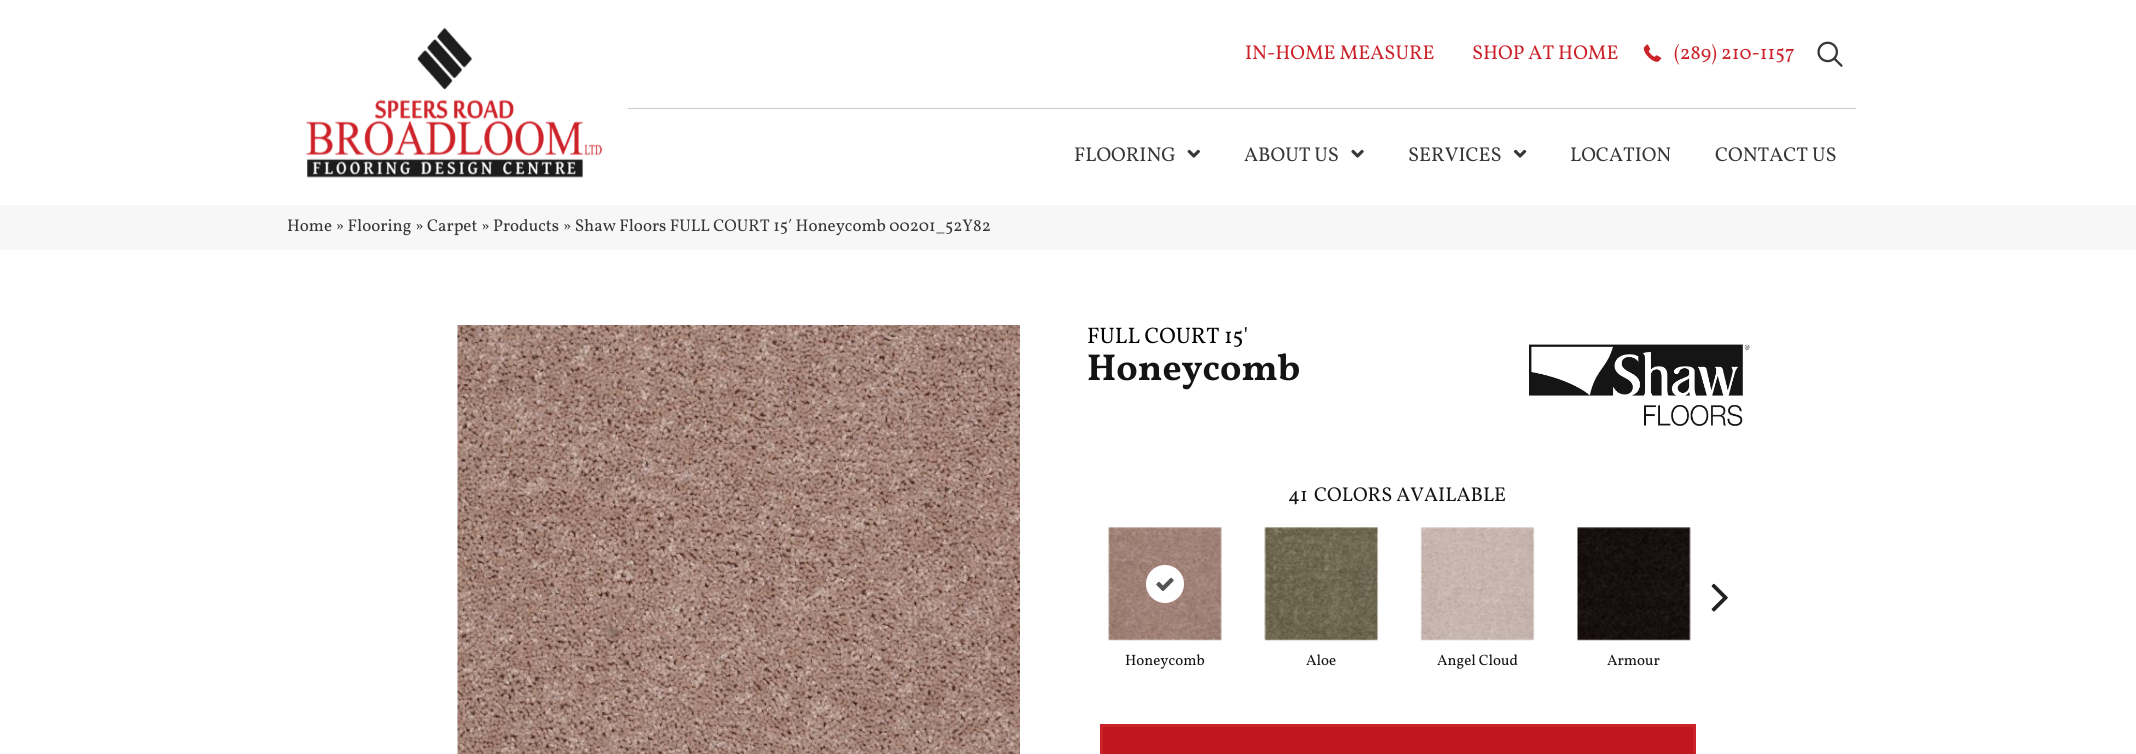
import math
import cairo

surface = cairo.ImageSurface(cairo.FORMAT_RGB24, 2136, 754)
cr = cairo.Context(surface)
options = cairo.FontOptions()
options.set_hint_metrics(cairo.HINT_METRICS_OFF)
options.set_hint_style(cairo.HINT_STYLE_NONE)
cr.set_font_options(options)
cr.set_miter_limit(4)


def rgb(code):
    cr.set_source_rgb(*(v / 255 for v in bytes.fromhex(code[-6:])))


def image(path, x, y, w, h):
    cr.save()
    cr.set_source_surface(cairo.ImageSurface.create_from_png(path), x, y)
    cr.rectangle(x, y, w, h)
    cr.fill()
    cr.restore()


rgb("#ffffff")
cr.paint()
image("img/1.png", 306, 27, 297, 151)
image("img/2.png", 1643, 44, 19, 18)
image("img/3.png", 1817, 41, 26, 26)
rgb("#cccccc")
cr.rectangle(628, 108, 1228, 1)
cr.fill()
image("img/4.png", 1187, 149, 13, 9)
image("img/5.png", 1351, 149, 13, 9)
image("img/6.png", 1513, 149, 14, 9)
rgb("#f7f7f7")
cr.rectangle(0, 205, 2136, 45)
cr.fill()
image("img/7.png", 457, 325, 563, 429)
image("img/8.png", 1529, 344, 221, 82)
image("img/9.png", 1711, 583, 17, 29)
image("img/10.png", 1108, 527, 114, 114)
rgb("#ffffff")
cr.arc(1165, 584, 19, 0, 2 * math.pi)
cr.fill()
image("img/11.png", 1156, 577, 18, 14)
image("img/12.png", 1264, 527, 114, 114)
image("img/13.png", 1420, 527, 115, 114)
image("img/14.png", 1577, 527, 114, 114)
rgb("#c0161e")
cr.rectangle(1101.5, 725.5, 593, 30)
cr.fill_preserve()
rgb("#cc222a")
cr.set_line_width(3)
cr.stroke()
cr.select_font_face("Vollkorn")
cr.set_font_size(20)
for x, y, s in [
    (1245, 59, "IN-HOME MEASURE"),
    (1472, 59, "SHOP AT HOME"),
    (1674, 59, "(289) 210-1157"),
]:
    cr.move_to(x, y)
    cr.show_text(s)
rgb("#373737")
for x, y, s in [
    (1074, 161, "FLOORING"),
    (1244, 161, "ABOUT US"),
    (1408, 161, "SERVICES"),
    (1570, 161, "LOCATION"),
    (1715, 161, "CONTACT US"),
]:
    cr.move_to(x, y)
    cr.show_text(s)
cr.set_font_size(17)
cr.move_to(287, 231)
cr.show_text("Home » Flooring » Carpet » Products » Shaw Floors FULL COURT 15′ Honeycomb 00201_52Y82")
cr.set_font_size(22.5)
rgb("#000000")
cr.move_to(1087, 343)
cr.show_text("FULL COURT 15'")
cr.select_font_face("Vollkorn", cairo.FONT_SLANT_NORMAL, cairo.FONT_WEIGHT_BOLD)
cr.set_font_size(37.5)
rgb("#141414")
cr.move_to(1087, 380)
cr.show_text("Honeycomb")
cr.select_font_face("Vollkorn")
cr.set_font_size(20)
cr.move_to(1288, 501)
cr.show_text("41")
cr.move_to(1314, 501)
cr.show_text("COLORS AVAILABLE")
cr.set_font_size(15)
for x, y, s in [
    (1125, 665, "Honeycomb"),
    (1306, 665, "Aloe"),
    (1437, 665, "Angel Cloud"),
    (1607, 665, "Armour"),
]:
    cr.move_to(x, y)
    cr.show_text(s)
surface.write_to_png("page.png")
